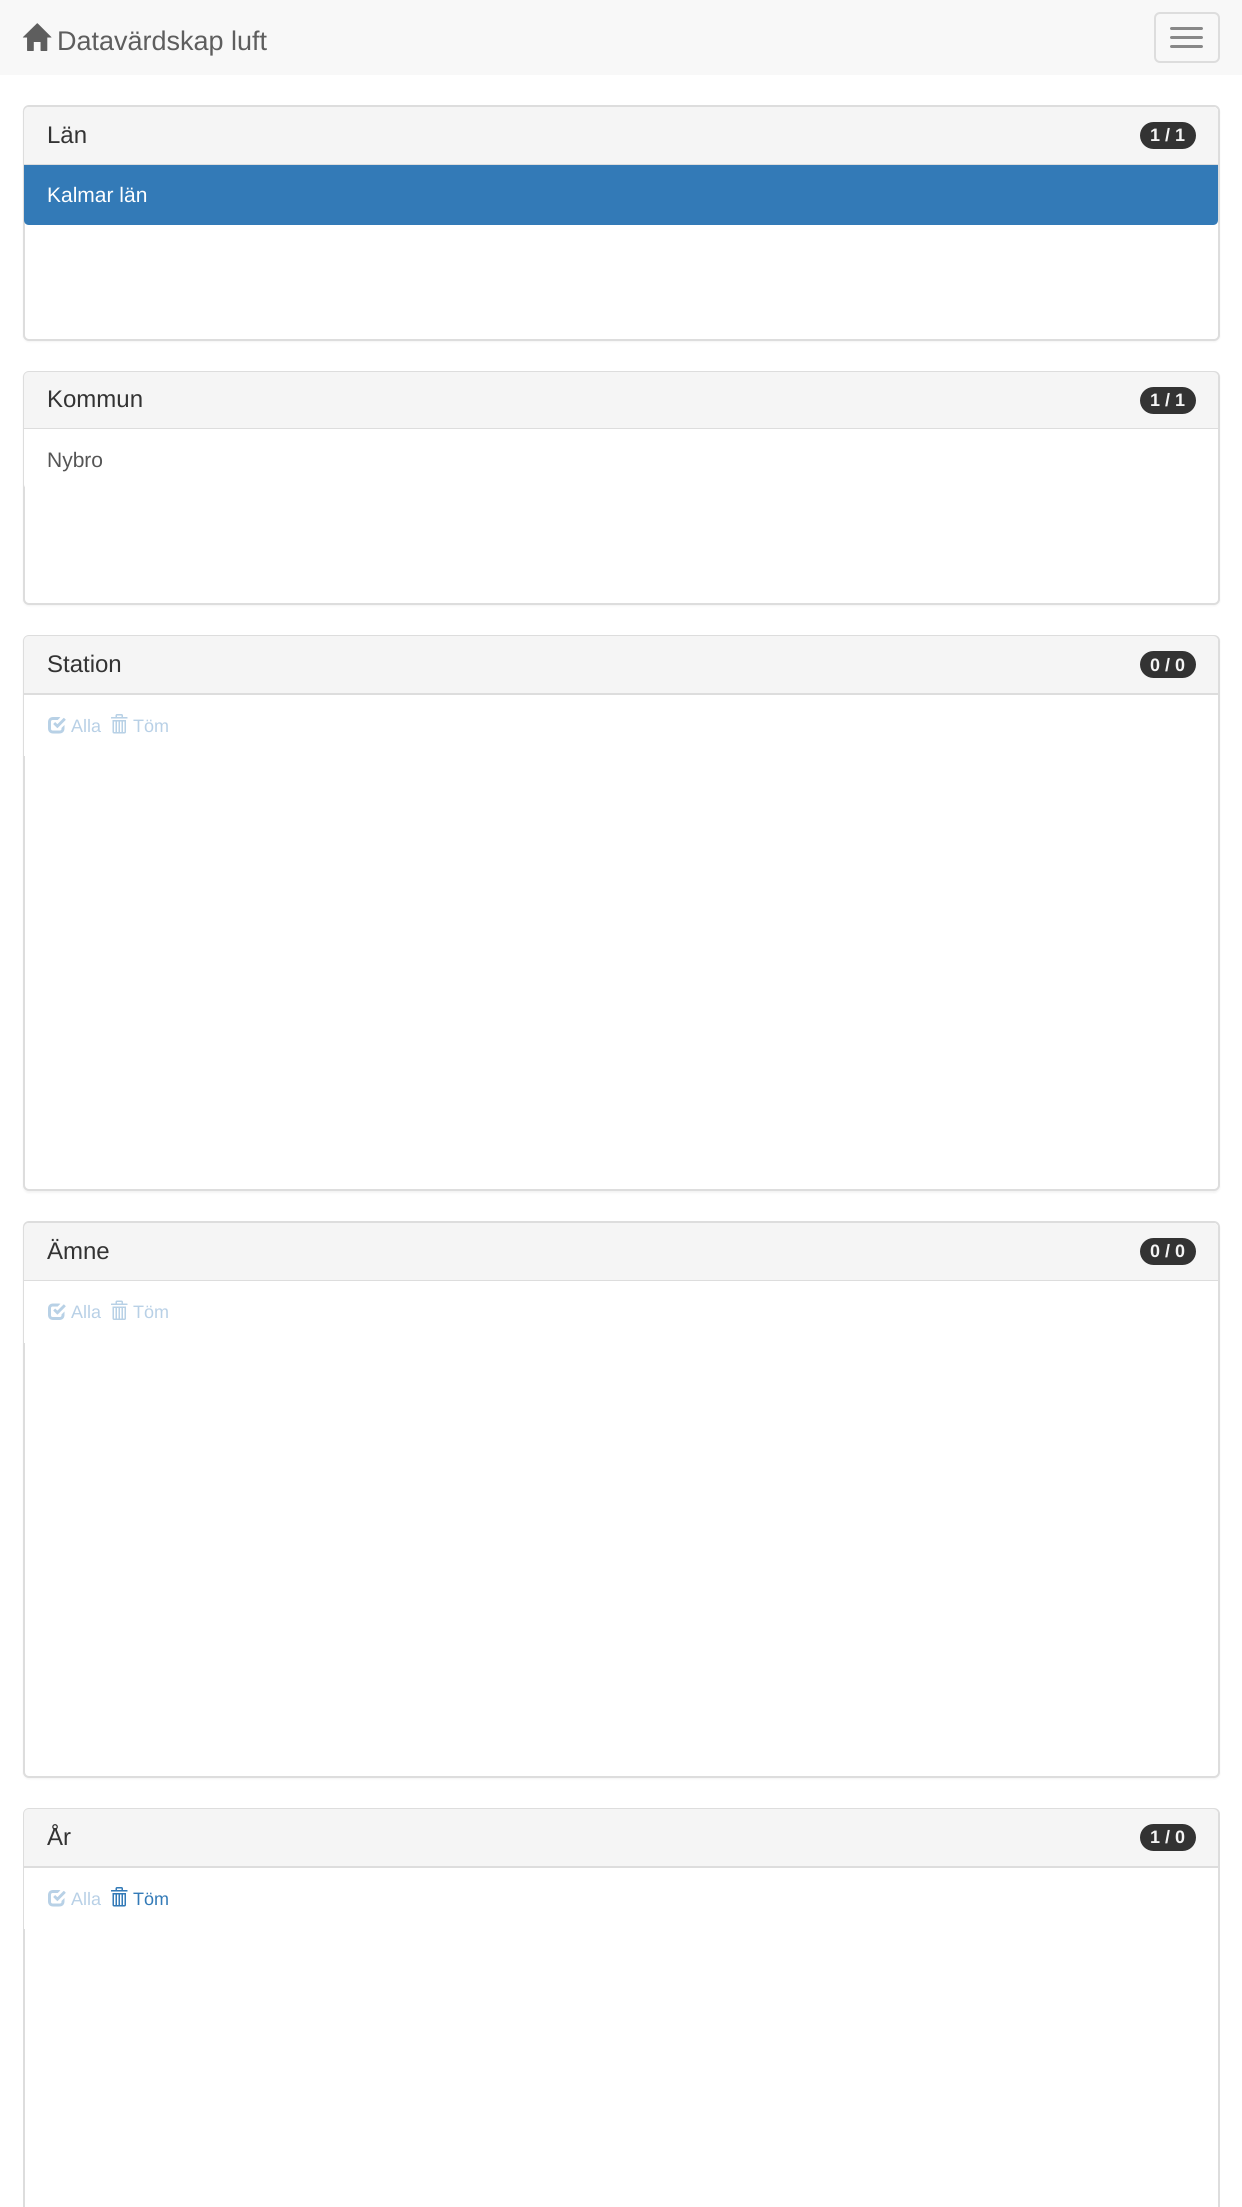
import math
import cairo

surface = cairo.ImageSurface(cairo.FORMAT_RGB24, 1242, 2207)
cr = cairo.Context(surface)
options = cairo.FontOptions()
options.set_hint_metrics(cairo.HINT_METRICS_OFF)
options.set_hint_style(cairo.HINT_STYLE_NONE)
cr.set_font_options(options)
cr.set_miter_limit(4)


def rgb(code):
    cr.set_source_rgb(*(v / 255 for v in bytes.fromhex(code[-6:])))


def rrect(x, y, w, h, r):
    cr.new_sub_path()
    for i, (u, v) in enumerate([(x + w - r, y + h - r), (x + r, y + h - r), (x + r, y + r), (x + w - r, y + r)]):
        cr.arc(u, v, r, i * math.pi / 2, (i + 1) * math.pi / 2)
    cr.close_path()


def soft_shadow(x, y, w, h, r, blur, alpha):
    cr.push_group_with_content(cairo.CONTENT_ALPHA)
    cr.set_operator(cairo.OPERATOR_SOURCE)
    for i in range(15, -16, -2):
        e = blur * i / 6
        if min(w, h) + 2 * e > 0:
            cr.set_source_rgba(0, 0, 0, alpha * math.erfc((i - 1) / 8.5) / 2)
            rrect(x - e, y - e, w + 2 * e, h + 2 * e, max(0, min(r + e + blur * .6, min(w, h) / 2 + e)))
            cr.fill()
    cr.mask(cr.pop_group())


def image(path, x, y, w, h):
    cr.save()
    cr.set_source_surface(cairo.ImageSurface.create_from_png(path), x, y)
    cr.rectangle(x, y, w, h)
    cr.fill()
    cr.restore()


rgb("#ffffff")
cr.paint()
rgb("#f8f8f8")
cr.rectangle(0, 0, 1242, 75)
cr.fill()
image("img/1.png", 22, 23, 30, 28)
rrect(1155, 13, 64, 49, 5)
rgb("#dddddd")
cr.stroke()
rgb("#888888")
rrect(1170, 27, 33, 3, 1.5)
cr.fill()
rrect(1170, 36, 33, 3, 1.5)
cr.fill()
rrect(1170, 45, 33, 3, 1.5)
cr.fill()
rgb("#000000")
soft_shadow(23, 107, 1197, 235, 6, 1, 0.05)
rgb("#ffffff")
rrect(24, 106, 1195, 234, 5)
cr.fill_preserve()
rgb("#dddddd")
cr.stroke()
rgb("#f5f5f5")
cr.new_path()
cr.move_to(29, 107)
cr.line_to(1213, 107)
cr.curve_to(1216, 107, 1218, 109, 1218, 112)
cr.line_to(1218, 165)
cr.line_to(24, 165)
cr.line_to(24, 112)
cr.curve_to(24, 109, 26, 107, 29, 107)
cr.close_path()
cr.fill()
rgb("#dddddd")
cr.rectangle(24, 164, 1194, 1)
cr.fill()
rgb("#333333")
rrect(1140, 122, 56, 27, 13.5)
cr.fill()
rgb("#337ab7")
cr.new_path()
cr.move_to(24, 165)
cr.line_to(1218, 165)
cr.line_to(1218, 220)
cr.curve_to(1218, 223, 1216, 225, 1213, 225)
cr.line_to(29, 225)
cr.curve_to(26, 225, 24, 223, 24, 220)
cr.close_path()
cr.fill()
rgb("#000000")
soft_shadow(23, 372, 1197, 234, 6, 1, 0.05)
rgb("#ffffff")
rrect(24, 372, 1195, 232, 5)
cr.fill_preserve()
rgb("#dddddd")
cr.stroke()
rgb("#f5f5f5")
cr.new_path()
cr.move_to(29, 372)
cr.line_to(1213, 372)
cr.curve_to(1216, 372, 1218, 374, 1218, 377)
cr.line_to(1218, 429)
cr.line_to(24, 429)
cr.line_to(24, 377)
cr.curve_to(24, 374, 26, 372, 29, 372)
cr.close_path()
cr.fill()
rgb("#dddddd")
cr.rectangle(24, 428, 1194, 1)
cr.fill()
rgb("#333333")
rrect(1140, 387, 56, 27, 13.5)
cr.fill()
rgb("#ffffff")
cr.new_path()
cr.move_to(24, 429)
cr.line_to(1218, 429)
cr.line_to(1218, 484)
cr.curve_to(1218, 487, 1216, 489, 1213, 489)
cr.line_to(29, 489)
cr.curve_to(26, 489, 24, 487, 24, 484)
cr.close_path()
cr.fill()
rgb("#000000")
soft_shadow(23, 636, 1197, 557, 6, 1, 0.05)
rgb("#ffffff")
rrect(24, 636, 1195, 554, 5)
cr.fill_preserve()
rgb("#dddddd")
cr.stroke()
rgb("#f5f5f5")
cr.new_path()
cr.move_to(29, 636)
cr.line_to(1213, 636)
cr.curve_to(1216, 636, 1218, 638, 1218, 641)
cr.line_to(1218, 695)
cr.line_to(24, 695)
cr.line_to(24, 641)
cr.curve_to(24, 638, 26, 636, 29, 636)
cr.close_path()
cr.fill()
rgb("#dddddd")
cr.rectangle(24, 693, 1194, 2)
cr.fill()
rgb("#333333")
rrect(1140, 651, 56, 27, 13.5)
cr.fill()
rgb("#ffffff")
cr.rectangle(24, 695, 1, 61)
cr.fill()
image("img/2.png", 48, 717, 18, 17)
image("img/3.png", 111, 714, 17, 20)
rgb("#000000")
soft_shadow(23, 1223, 1197, 556, 6, 1, 0.05)
rgb("#ffffff")
rrect(24, 1222, 1195, 555, 5)
cr.fill_preserve()
rgb("#dddddd")
cr.stroke()
rgb("#f5f5f5")
cr.new_path()
cr.move_to(29, 1223)
cr.line_to(1213, 1223)
cr.curve_to(1216, 1223, 1218, 1225, 1218, 1228)
cr.line_to(1218, 1281)
cr.line_to(24, 1281)
cr.line_to(24, 1228)
cr.curve_to(24, 1225, 26, 1223, 29, 1223)
cr.close_path()
cr.fill()
rgb("#dddddd")
cr.rectangle(24, 1280, 1194, 1)
cr.fill()
rgb("#333333")
rrect(1140, 1238, 56, 27, 13.5)
cr.fill()
rgb("#ffffff")
cr.rectangle(24, 1281, 1, 62)
cr.fill()
image("img/4.png", 48, 1303, 18, 17)
image("img/5.png", 111, 1300, 17, 20)
rrect(24, 1809, 1195, 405, 5)
rgb("#dddddd")
cr.stroke()
rgb("#f5f5f5")
cr.new_path()
cr.move_to(29, 1809)
cr.line_to(1213, 1809)
cr.curve_to(1216, 1809, 1218, 1811, 1218, 1814)
cr.line_to(1218, 1868)
cr.line_to(24, 1868)
cr.line_to(24, 1814)
cr.curve_to(24, 1811, 26, 1809, 29, 1809)
cr.close_path()
cr.fill()
rgb("#dddddd")
cr.rectangle(24, 1866, 1194, 2)
cr.fill()
rgb("#333333")
rrect(1140, 1824, 56, 27, 13.5)
cr.fill()
rgb("#ffffff")
cr.rectangle(24, 1868, 1, 61)
cr.fill()
image("img/2.png", 48, 1890, 18, 17)
image("img/6.png", 111, 1887, 17, 20)
cr.select_font_face("Liberation Sans")
cr.set_font_size(27)
rgb("#5e5e5e")
cr.move_to(57, 50)
cr.show_text("Datavärdskap luft")
cr.set_font_size(24)
rgb("#333333")
cr.move_to(47, 143)
cr.show_text("Län")
cr.select_font_face("Liberation Sans", cairo.FONT_SLANT_NORMAL, cairo.FONT_WEIGHT_BOLD)
cr.set_font_size(18)
rgb("#f5f5f5")
cr.move_to(1150, 141)
cr.show_text("1 / 1")
cr.select_font_face("Liberation Sans")
cr.set_font_size(21)
rgb("#ffffff")
cr.move_to(47, 202)
cr.show_text("Kalmar län")
cr.set_font_size(24)
rgb("#333333")
cr.move_to(47, 407)
cr.show_text("Kommun")
cr.select_font_face("Liberation Sans", cairo.FONT_SLANT_NORMAL, cairo.FONT_WEIGHT_BOLD)
cr.set_font_size(18)
rgb("#f5f5f5")
cr.move_to(1150, 406)
cr.show_text("1 / 1")
cr.select_font_face("Liberation Sans")
cr.set_font_size(21)
rgb("#555555")
cr.move_to(47, 467)
cr.show_text("Nybro")
cr.set_font_size(24)
rgb("#333333")
cr.move_to(47, 672)
cr.show_text("Station")
cr.select_font_face("Liberation Sans", cairo.FONT_SLANT_NORMAL, cairo.FONT_WEIGHT_BOLD)
cr.set_font_size(18)
rgb("#f5f5f5")
cr.move_to(1150, 671)
cr.show_text("0 / 0")
cr.select_font_face("Liberation Sans")
rgb("#b8d0e6")
cr.move_to(71, 732)
cr.show_text("Alla")
cr.move_to(133, 732)
cr.show_text("Töm")
cr.set_font_size(24)
rgb("#333333")
cr.move_to(47, 1259)
cr.show_text("Ämne")
cr.select_font_face("Liberation Sans", cairo.FONT_SLANT_NORMAL, cairo.FONT_WEIGHT_BOLD)
cr.set_font_size(18)
rgb("#f5f5f5")
cr.move_to(1150, 1257)
cr.show_text("0 / 0")
cr.select_font_face("Liberation Sans")
rgb("#b8d0e6")
cr.move_to(71, 1318)
cr.show_text("Alla")
cr.move_to(133, 1318)
cr.show_text("Töm")
cr.set_font_size(24)
rgb("#333333")
cr.move_to(47, 1845)
cr.show_text("År")
cr.select_font_face("Liberation Sans", cairo.FONT_SLANT_NORMAL, cairo.FONT_WEIGHT_BOLD)
cr.set_font_size(18)
rgb("#f5f5f5")
cr.move_to(1150, 1843)
cr.show_text("1 / 0")
cr.select_font_face("Liberation Sans")
rgb("#b8d0e6")
cr.move_to(71, 1905)
cr.show_text("Alla")
rgb("#337ab7")
cr.move_to(133, 1905)
cr.show_text("Töm")
surface.write_to_png("page.png")
